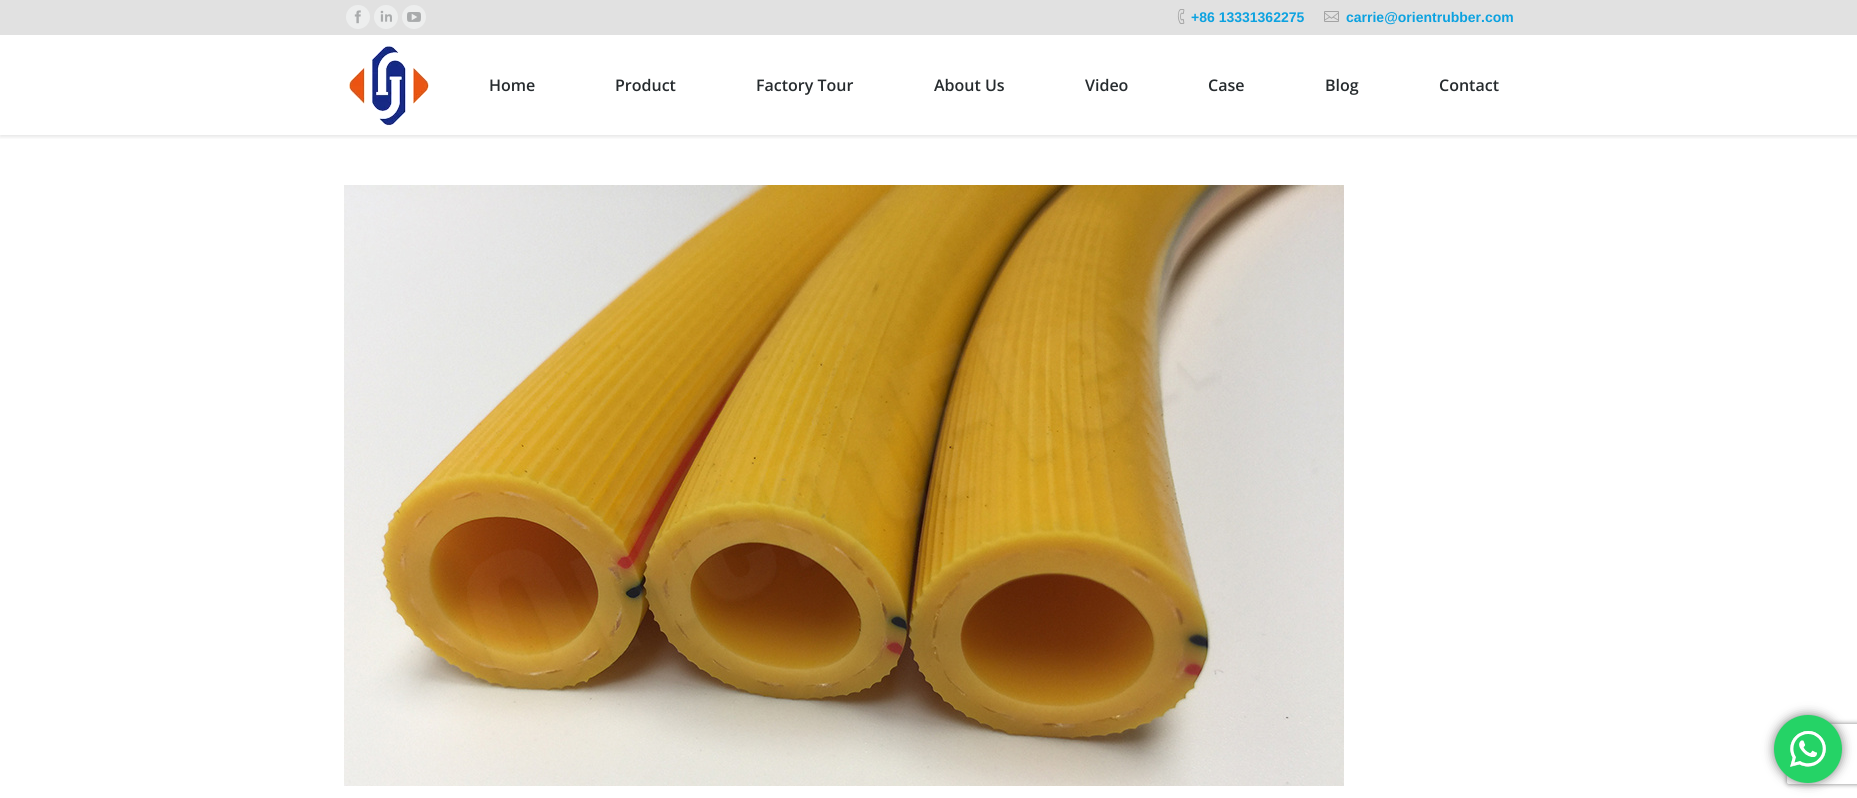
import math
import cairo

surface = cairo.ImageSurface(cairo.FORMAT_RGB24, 1857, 798)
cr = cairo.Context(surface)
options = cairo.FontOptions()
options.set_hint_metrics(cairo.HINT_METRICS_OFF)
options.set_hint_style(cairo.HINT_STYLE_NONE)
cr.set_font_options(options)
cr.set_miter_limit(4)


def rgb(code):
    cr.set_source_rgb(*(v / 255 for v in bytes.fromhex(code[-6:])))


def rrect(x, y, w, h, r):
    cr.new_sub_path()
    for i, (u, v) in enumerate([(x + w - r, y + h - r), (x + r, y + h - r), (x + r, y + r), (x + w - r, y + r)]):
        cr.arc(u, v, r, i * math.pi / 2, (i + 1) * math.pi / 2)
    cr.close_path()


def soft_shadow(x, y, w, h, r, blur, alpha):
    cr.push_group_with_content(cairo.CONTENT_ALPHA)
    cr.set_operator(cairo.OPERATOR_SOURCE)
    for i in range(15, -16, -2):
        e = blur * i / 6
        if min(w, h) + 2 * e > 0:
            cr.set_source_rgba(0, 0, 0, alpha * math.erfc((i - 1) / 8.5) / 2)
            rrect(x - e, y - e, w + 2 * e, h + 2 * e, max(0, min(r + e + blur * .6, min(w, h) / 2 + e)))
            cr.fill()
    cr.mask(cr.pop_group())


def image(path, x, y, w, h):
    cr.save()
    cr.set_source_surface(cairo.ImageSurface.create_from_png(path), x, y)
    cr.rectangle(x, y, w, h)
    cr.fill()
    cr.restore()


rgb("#ffffff")
cr.paint()
cr.save()
cr.rectangle(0, 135, 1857, 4)
cr.clip()
rgb("#000000")
soft_shadow(0, 0, 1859, 137, 0, 2, 0.1)
cr.restore()
rgb("#e1e1e1")
cr.rectangle(0, 0, 1857, 35)
cr.fill()
rgb("#edeeee")
cr.arc(358, 17, 12, 0, 2 * math.pi)
cr.fill()
image("img/1.png", 354, 10, 7, 14)
cr.arc(386, 17, 12, 0, 2 * math.pi)
cr.fill()
image("img/2.png", 380, 10, 12, 12)
cr.arc(414, 17, 12, 0, 2 * math.pi)
cr.fill()
image("img/3.png", 407, 12, 14, 10)
image("img/4.png", 1177, 9, 8, 15)
image("img/5.png", 1324, 11, 15, 11)
image("img/6.png", 349, 46, 80, 80)
image("img/7.png", 344, 185, 1000, 601)
rgb("#000000")
soft_shadow(1774, 715, 68, 68, 34, 5.5, 0.5)
cr.save()
cr.set_fill_rule(cairo.FILL_RULE_EVEN_ODD)
cr.new_path()
cr.move_to(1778, 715)
cr.line_to(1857, 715)
cr.line_to(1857, 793)
cr.line_to(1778, 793)
cr.close_path()
cr.move_to(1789, 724)
cr.line_to(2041, 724)
cr.curve_to(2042, 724, 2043, 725, 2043, 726)
cr.line_to(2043, 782)
cr.curve_to(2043, 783, 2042, 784, 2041, 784)
cr.line_to(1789, 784)
cr.curve_to(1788, 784, 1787, 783, 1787, 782)
cr.line_to(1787, 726)
cr.curve_to(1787, 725, 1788, 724, 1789, 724)
cr.close_path()
cr.clip()
rgb("#808080")
soft_shadow(1787, 724, 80, 60, 2, 2.5, 1)
cr.restore()
rgb("#25d366")
cr.arc(1808, 749, 34, 0, 2 * math.pi)
cr.fill()
image("img/8.png", 1790, 731, 36, 36)
cr.select_font_face("Liberation Sans", cairo.FONT_SLANT_NORMAL, cairo.FONT_WEIGHT_BOLD)
cr.set_font_size(14)
rgb("#0ca2e0")
cr.move_to(1191, 22)
cr.show_text("+86 13331362275")
cr.move_to(1346, 22)
cr.show_text("carrie@orientrubber.com")
cr.select_font_face("Open Sans SemiBold")
cr.set_font_size(16)
rgb("#262b2e")
for x, y, s in [
    (489, 91, "Home"),
    (615, 91, "Product"),
    (756, 91, "Factory Tour"),
    (934, 91, "About Us"),
    (1085, 91, "Video"),
    (1208, 91, "Case"),
    (1325, 91, "Blog"),
    (1439, 91, "Contact"),
]:
    cr.move_to(x, y)
    cr.show_text(s)
surface.write_to_png("page.png")
